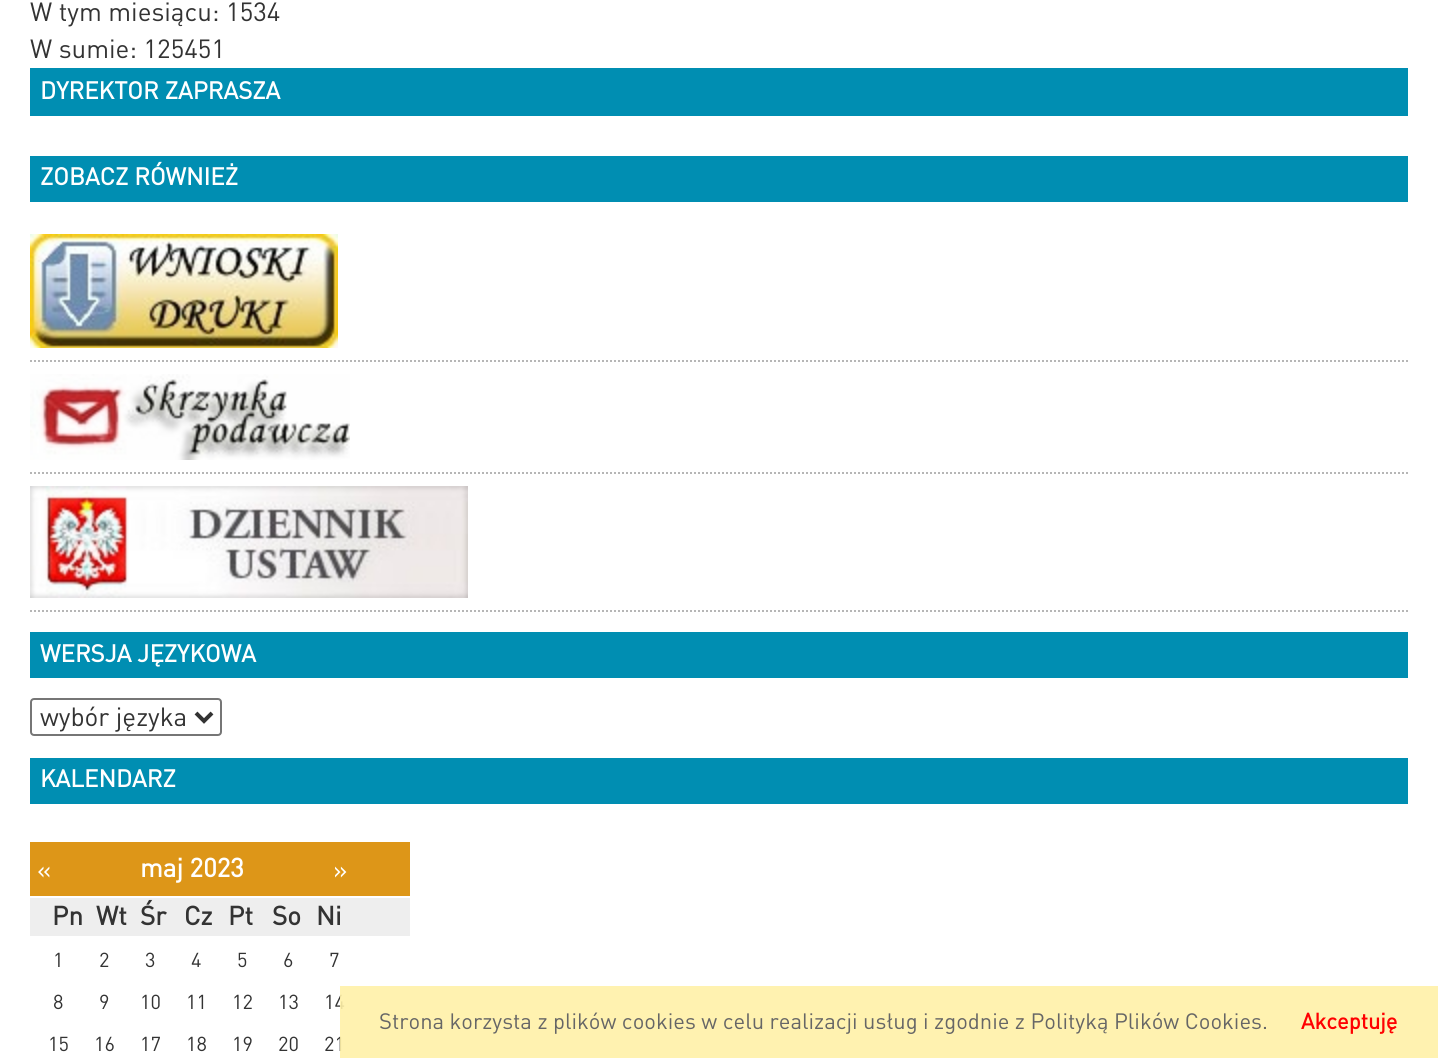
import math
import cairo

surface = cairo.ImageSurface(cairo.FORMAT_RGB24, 1438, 1058)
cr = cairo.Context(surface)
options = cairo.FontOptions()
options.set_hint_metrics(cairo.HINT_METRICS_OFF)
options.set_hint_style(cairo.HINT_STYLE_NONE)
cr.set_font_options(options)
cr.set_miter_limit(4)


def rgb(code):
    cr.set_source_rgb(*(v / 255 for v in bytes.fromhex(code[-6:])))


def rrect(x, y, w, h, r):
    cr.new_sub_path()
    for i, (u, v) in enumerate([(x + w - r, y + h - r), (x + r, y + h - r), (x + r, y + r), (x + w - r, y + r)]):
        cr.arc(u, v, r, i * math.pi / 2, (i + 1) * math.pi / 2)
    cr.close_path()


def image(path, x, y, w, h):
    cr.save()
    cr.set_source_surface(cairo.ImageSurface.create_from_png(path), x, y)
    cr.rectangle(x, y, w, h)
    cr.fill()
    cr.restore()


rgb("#ffffff")
cr.paint()
rgb("#008eb2")
cr.rectangle(30, 68, 1378, 48)
cr.fill()
cr.rectangle(30, 156, 1378, 46)
cr.fill()
cr.new_path()
cr.move_to(30, 361)
cr.line_to(1408, 361)
rgb("#b6b6b6")
cr.set_dash([2, 2])
cr.stroke()
image("img/1.png", 30, 234, 308, 114)
cr.new_path()
cr.move_to(30, 473)
cr.line_to(1408, 473)
cr.stroke()
image("img/2.png", 30, 374, 320, 86)
cr.new_path()
cr.move_to(30, 611)
cr.line_to(1408, 611)
cr.stroke()
image("img/3.png", 30, 486, 438, 112)
rgb("#008eb2")
cr.rectangle(30, 632, 1378, 46)
cr.fill()
rrect(31, 699, 190, 36, 3)
rgb("#767676")
cr.set_dash([])
cr.stroke()
cr.new_path()
cr.move_to(196, 713)
cr.line_to(204, 721)
cr.line_to(212, 713)
rgb("#333333")
cr.set_line_width(4)
cr.stroke()
for x, y, w, h, color in [
    (30, 758, 1378, 46, "#008eb2"),
    (30, 842, 380, 54, "#dd9618"),
    (30, 898, 380, 38, "#eeeeee"),
]:
    rgb(color)
    cr.rectangle(x, y, w, h)
    cr.fill()
cr.select_font_face("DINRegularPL")
cr.set_font_size(26)
rgb("#333333")
cr.move_to(30, 21)
cr.show_text("W tym miesiącu: 1534")
cr.move_to(30, 58)
cr.show_text("W sumie: 125451")
cr.select_font_face("DINRegularPL", cairo.FONT_SLANT_NORMAL, cairo.FONT_WEIGHT_BOLD)
cr.set_font_size(24)
rgb("#ffffff")
for x, y, s in [
    (40, 99, "DYREKTOR ZAPRASZA"),
    (40, 185, "ZOBACZ RÓWNIEŻ"),
    (40, 662, "WERSJA JĘZYKOWA"),
]:
    cr.move_to(x, y)
    cr.show_text(s)
cr.select_font_face("DINRegularPL")
cr.set_font_size(26)
rgb("#333333")
cr.move_to(40, 726)
cr.show_text("wybór języka")
cr.select_font_face("DINRegularPL", cairo.FONT_SLANT_NORMAL, cairo.FONT_WEIGHT_BOLD)
cr.set_font_size(24)
rgb("#ffffff")
cr.move_to(40, 787)
cr.show_text("KALENDARZ")
cr.select_font_face("DINRegularPL")
cr.set_font_size(26)
cr.move_to(37, 879)
cr.show_text("«")
cr.select_font_face("DINRegularPL", cairo.FONT_SLANT_NORMAL, cairo.FONT_WEIGHT_BOLD)
cr.move_to(140, 877)
cr.show_text("maj 2023")
cr.select_font_face("DINRegularPL")
cr.move_to(333, 879)
cr.show_text("»")
cr.select_font_face("DINRegularPL", cairo.FONT_SLANT_NORMAL, cairo.FONT_WEIGHT_BOLD)
rgb("#333333")
for x, y, s in [
    (52, 925, "Pn"),
    (96, 925, "Wt"),
    (140, 925, "Śr"),
    (184, 925, "Cz"),
    (228, 925, "Pt"),
    (272, 925, "So"),
    (316, 925, "Ni"),
]:
    cr.move_to(x, y)
    cr.show_text(s)
cr.select_font_face("DINRegularPL")
cr.set_font_size(20)
for x, y, s in [
    (53, 967, "1"),
    (99, 967, "2"),
    (145, 967, "3"),
    (191, 967, "4"),
    (237, 967, "5"),
    (283, 967, "6"),
    (329, 967, "7"),
    (53, 1009, "8"),
    (99, 1009, "9"),
    (140, 1009, "10"),
    (186, 1009, "11"),
    (232, 1009, "12"),
    (278, 1009, "13"),
    (324, 1009, "14"),
    (48, 1051, "15"),
    (94, 1051, "16"),
    (140, 1051, "17"),
    (186, 1051, "18"),
    (232, 1051, "19"),
    (278, 1051, "20"),
    (324, 1051, "21"),
]:
    cr.move_to(x, y)
    cr.show_text(s)
cr.set_source_rgba(1, 0.945, 0.659, 0.9)
cr.rectangle(340, 986, 1098, 72)
cr.fill()
cr.set_font_size(22)
rgb("#666666")
cr.move_to(379, 1029)
cr.show_text("Strona korzysta z plików cookies w celu realizacji usług i zgodnie z Polityką Plików Cookies.")
cr.select_font_face("DINRegularPL", cairo.FONT_SLANT_NORMAL, cairo.FONT_WEIGHT_BOLD)
rgb("#ff0000")
cr.move_to(1301, 1029)
cr.show_text("Akceptuję")
surface.write_to_png("page.png")
